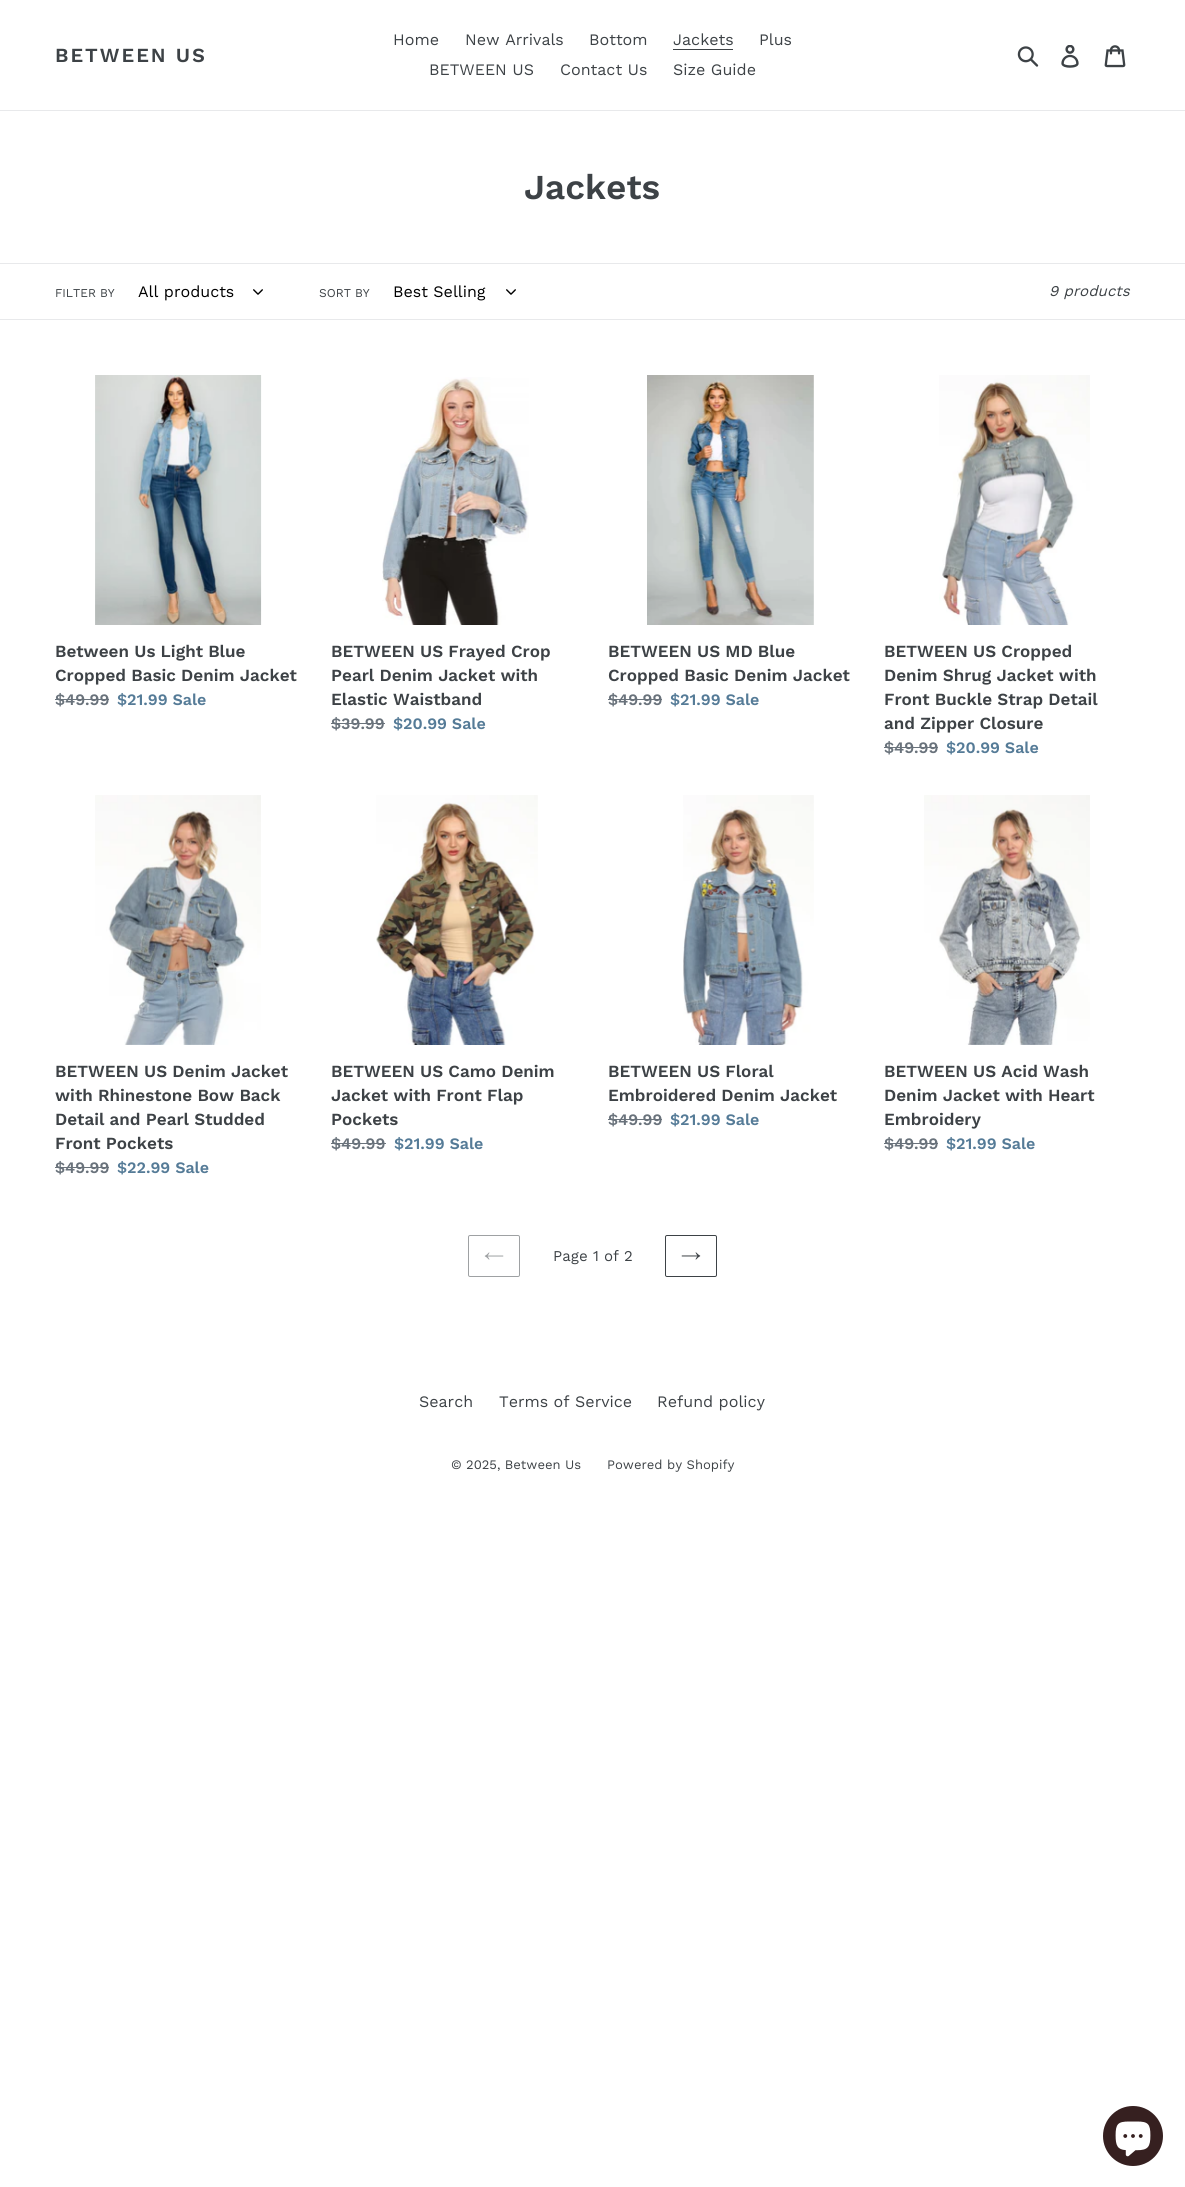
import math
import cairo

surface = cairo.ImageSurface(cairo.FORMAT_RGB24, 1185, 2187)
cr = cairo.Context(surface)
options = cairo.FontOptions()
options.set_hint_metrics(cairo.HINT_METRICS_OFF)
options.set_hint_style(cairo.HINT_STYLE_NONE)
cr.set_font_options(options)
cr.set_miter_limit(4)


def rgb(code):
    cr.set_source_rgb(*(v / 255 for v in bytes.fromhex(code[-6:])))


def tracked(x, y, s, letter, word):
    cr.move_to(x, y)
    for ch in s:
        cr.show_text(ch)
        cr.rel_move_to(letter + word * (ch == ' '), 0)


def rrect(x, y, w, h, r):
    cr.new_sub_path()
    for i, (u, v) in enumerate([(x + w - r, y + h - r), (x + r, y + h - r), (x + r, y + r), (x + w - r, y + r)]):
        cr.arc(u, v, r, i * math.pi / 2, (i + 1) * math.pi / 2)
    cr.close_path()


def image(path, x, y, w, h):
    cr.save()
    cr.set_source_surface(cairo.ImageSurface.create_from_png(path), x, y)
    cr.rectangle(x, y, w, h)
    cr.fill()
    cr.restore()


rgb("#ffffff")
cr.paint()
rgb("#e8e9eb")
cr.rectangle(0, 110, 1185, 1)
cr.fill()
rgb("#3d4246")
cr.rectangle(673, 49, 60, 1)
cr.fill()
image("img/1.png", 1017, 46, 22, 21)
image("img/2.png", 1061, 45, 18, 23)
image("img/3.png", 1104, 45, 22, 23)
rgb("#e8e9eb")
cr.rectangle(0, 263, 1185, 1)
cr.fill()
cr.rectangle(0, 319, 1185, 1)
cr.fill()
image("img/4.png", 253, 289, 10, 6)
image("img/4.png", 506, 289, 10, 6)
image("img/5.png", 95, 375, 167, 250)
rgb("#69727b")
cr.rectangle(55, 699, 54, 1)
cr.fill()
image("img/6.png", 382, 377, 147, 248)
cr.rectangle(331, 723, 54, 1)
cr.fill()
image("img/7.png", 647, 375, 167, 250)
cr.rectangle(608, 699, 54, 1)
cr.fill()
image("img/8.png", 939, 375, 151, 250)
cr.rectangle(884, 747, 54, 1)
cr.fill()
image("img/9.png", 95, 795, 166, 250)
cr.rectangle(55, 1167, 54, 1)
cr.fill()
image("img/10.png", 376, 795, 162, 250)
cr.rectangle(331, 1143, 55, 1)
cr.fill()
image("img/11.png", 683, 795, 131, 250)
cr.rectangle(608, 1119, 54, 1)
cr.fill()
image("img/12.png", 924, 795, 166, 250)
cr.rectangle(884, 1143, 54, 1)
cr.fill()
rrect(468.5, 1235.5, 51, 41, 1.5)
rgb("#9ea1a3")
cr.set_line_width(1)
cr.stroke()
image("img/13.png", 484, 1252, 20, 8)
rrect(665.5, 1235.5, 51, 41, 1.5)
rgb("#3d4246")
cr.stroke()
image("img/14.png", 681, 1252, 20, 8)
rgb("#362020")
cr.arc(1133, 2136, 30, 0, 2 * math.pi)
cr.fill()
image("img/15.png", 1115, 2121, 36, 36)
cr.select_font_face("Work Sans SemiBold")
cr.set_font_size(20)
rgb("#3d4246")
tracked(55, 62, "BETWEEN US", 2, 0)
cr.select_font_face("Work Sans")
cr.set_font_size(16)
for x, y, s in [
    (393, 45, "Home"),
    (465, 45, "New Arrivals"),
    (589, 45, "Bottom"),
    (673, 45, "Jackets"),
    (759, 45, "Plus"),
    (429, 75, "BETWEEN US"),
    (560, 75, "Contact Us"),
    (673, 75, "Size Guide"),
]:
    cr.move_to(x, y)
    cr.show_text(s)
cr.select_font_face("Work Sans SemiBold")
cr.set_font_size(35)
cr.move_to(524, 199)
cr.show_text("Jackets")
cr.select_font_face("Work Sans")
cr.set_font_size(12)
cr.move_to(55, 297)
cr.show_text("FILTER BY")
cr.set_font_size(16)
rgb("#000000")
cr.move_to(138, 297)
cr.show_text("All products")
cr.set_font_size(12)
rgb("#3d4246")
cr.move_to(319, 297)
cr.show_text("SORT BY")
cr.set_font_size(16)
rgb("#000000")
cr.move_to(393, 297)
cr.show_text("Best Selling")
cr.select_font_face("Work Sans", cairo.FONT_SLANT_ITALIC)
cr.set_font_size(15)
rgb("#3d4246")
cr.move_to(1049, 296)
cr.show_text("9 products")
cr.select_font_face("Work Sans SemiBold")
cr.set_font_size(17)
cr.move_to(55, 657)
cr.show_text("Between Us Light Blue")
cr.move_to(55, 681)
cr.show_text("Cropped Basic Denim Jacket")
cr.set_font_size(16)
rgb("#69727b")
cr.move_to(55, 705)
cr.show_text("$49.99")
rgb("#557b97")
cr.move_to(117, 705)
cr.show_text("$21.99 Sale")
cr.set_font_size(17)
rgb("#3d4246")
for x, y, s in [
    (331, 657, "BETWEEN US Frayed Crop"),
    (331, 681, "Pearl Denim Jacket with"),
    (331, 705, "Elastic Waistband"),
]:
    cr.move_to(x, y)
    cr.show_text(s)
cr.set_font_size(16)
rgb("#69727b")
cr.move_to(331, 729)
cr.show_text("$39.99")
rgb("#557b97")
cr.move_to(393, 729)
cr.show_text("$20.99 Sale")
cr.set_font_size(17)
rgb("#3d4246")
cr.move_to(608, 657)
cr.show_text("BETWEEN US MD Blue")
cr.move_to(608, 681)
cr.show_text("Cropped Basic Denim Jacket")
cr.set_font_size(16)
rgb("#69727b")
cr.move_to(608, 705)
cr.show_text("$49.99")
rgb("#557b97")
cr.move_to(670, 705)
cr.show_text("$21.99 Sale")
cr.set_font_size(17)
rgb("#3d4246")
for x, y, s in [
    (884, 657, "BETWEEN US Cropped"),
    (884, 681, "Denim Shrug Jacket with"),
    (884, 705, "Front Buckle Strap Detail"),
    (884, 729, "and Zipper Closure"),
]:
    cr.move_to(x, y)
    cr.show_text(s)
cr.set_font_size(16)
rgb("#69727b")
cr.move_to(884, 753)
cr.show_text("$49.99")
rgb("#557b97")
cr.move_to(946, 753)
cr.show_text("$20.99 Sale")
cr.set_font_size(17)
rgb("#3d4246")
for x, y, s in [
    (55, 1077, "BETWEEN US Denim Jacket"),
    (55, 1101, "with Rhinestone Bow Back"),
    (55, 1125, "Detail and Pearl Studded"),
    (55, 1149, "Front Pockets"),
]:
    cr.move_to(x, y)
    cr.show_text(s)
cr.set_font_size(16)
rgb("#69727b")
cr.move_to(55, 1173)
cr.show_text("$49.99")
rgb("#557b97")
cr.move_to(117, 1173)
cr.show_text("$22.99 Sale")
cr.set_font_size(17)
rgb("#3d4246")
for x, y, s in [
    (331, 1077, "BETWEEN US Camo Denim"),
    (331, 1101, "Jacket with Front Flap"),
    (331, 1125, "Pockets"),
]:
    cr.move_to(x, y)
    cr.show_text(s)
cr.set_font_size(16)
rgb("#69727b")
cr.move_to(331, 1149)
cr.show_text("$49.99")
rgb("#557b97")
cr.move_to(394, 1149)
cr.show_text("$21.99 Sale")
cr.set_font_size(17)
rgb("#3d4246")
cr.move_to(608, 1077)
cr.show_text("BETWEEN US Floral")
cr.move_to(608, 1101)
cr.show_text("Embroidered Denim Jacket")
cr.set_font_size(16)
rgb("#69727b")
cr.move_to(608, 1125)
cr.show_text("$49.99")
rgb("#557b97")
cr.move_to(670, 1125)
cr.show_text("$21.99 Sale")
cr.set_font_size(17)
rgb("#3d4246")
for x, y, s in [
    (884, 1077, "BETWEEN US Acid Wash"),
    (884, 1101, "Denim Jacket with Heart"),
    (884, 1125, "Embroidery"),
]:
    cr.move_to(x, y)
    cr.show_text(s)
cr.set_font_size(16)
rgb("#69727b")
cr.move_to(884, 1149)
cr.show_text("$49.99")
rgb("#557b97")
cr.move_to(946, 1149)
cr.show_text("$21.99 Sale")
cr.select_font_face("Work Sans")
cr.set_font_size(15)
rgb("#3d4246")
cr.move_to(553, 1261)
cr.show_text("Page 1 of 2")
cr.set_font_size(16)
for x, y, s in [
    (419, 1407, "Search"),
    (499, 1407, "Terms of Service"),
    (657, 1407, "Refund policy"),
]:
    cr.move_to(x, y)
    cr.show_text(s)
cr.set_font_size(13)
cr.move_to(451, 1469)
cr.show_text("© 2025, Between Us")
cr.move_to(607, 1469)
cr.show_text("Powered by Shopify")
surface.write_to_png("page.png")
